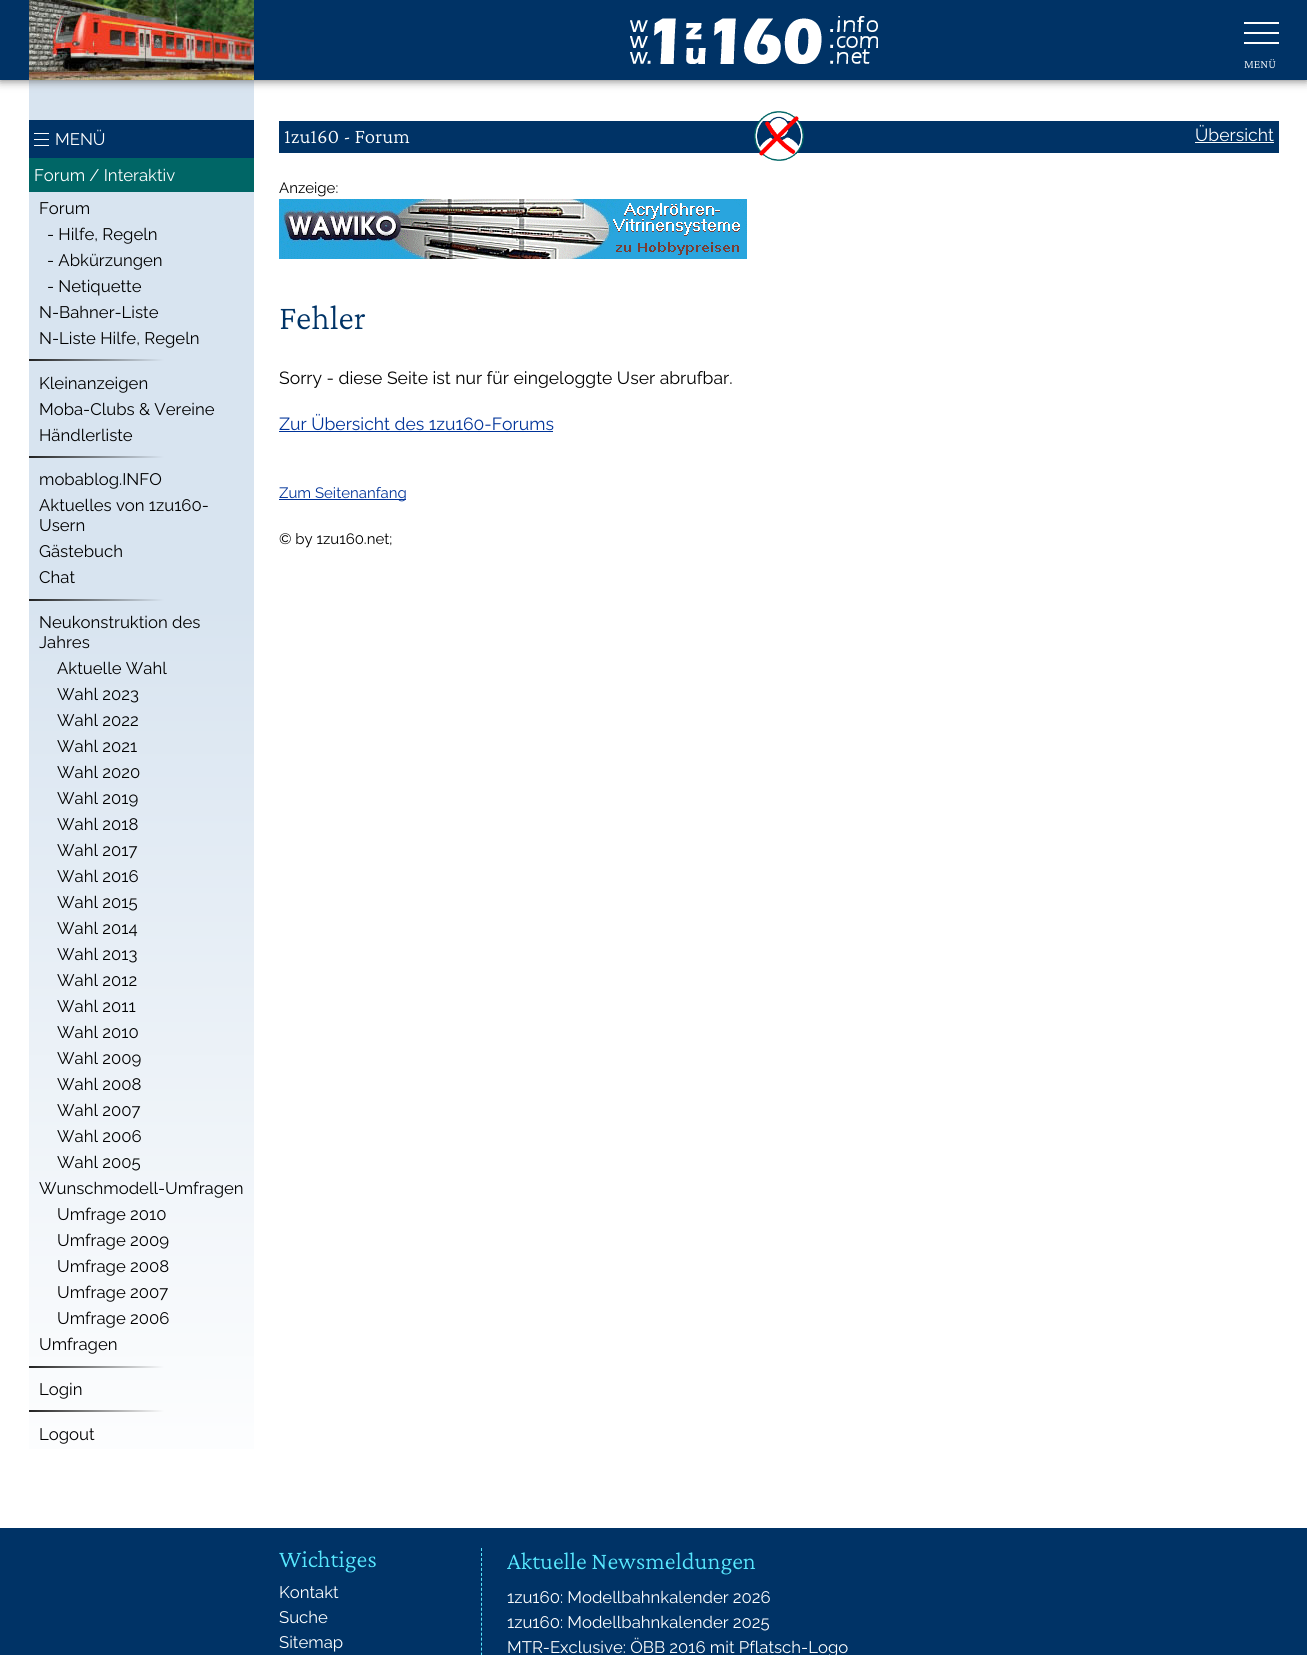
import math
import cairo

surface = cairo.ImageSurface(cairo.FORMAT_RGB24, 1307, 1655)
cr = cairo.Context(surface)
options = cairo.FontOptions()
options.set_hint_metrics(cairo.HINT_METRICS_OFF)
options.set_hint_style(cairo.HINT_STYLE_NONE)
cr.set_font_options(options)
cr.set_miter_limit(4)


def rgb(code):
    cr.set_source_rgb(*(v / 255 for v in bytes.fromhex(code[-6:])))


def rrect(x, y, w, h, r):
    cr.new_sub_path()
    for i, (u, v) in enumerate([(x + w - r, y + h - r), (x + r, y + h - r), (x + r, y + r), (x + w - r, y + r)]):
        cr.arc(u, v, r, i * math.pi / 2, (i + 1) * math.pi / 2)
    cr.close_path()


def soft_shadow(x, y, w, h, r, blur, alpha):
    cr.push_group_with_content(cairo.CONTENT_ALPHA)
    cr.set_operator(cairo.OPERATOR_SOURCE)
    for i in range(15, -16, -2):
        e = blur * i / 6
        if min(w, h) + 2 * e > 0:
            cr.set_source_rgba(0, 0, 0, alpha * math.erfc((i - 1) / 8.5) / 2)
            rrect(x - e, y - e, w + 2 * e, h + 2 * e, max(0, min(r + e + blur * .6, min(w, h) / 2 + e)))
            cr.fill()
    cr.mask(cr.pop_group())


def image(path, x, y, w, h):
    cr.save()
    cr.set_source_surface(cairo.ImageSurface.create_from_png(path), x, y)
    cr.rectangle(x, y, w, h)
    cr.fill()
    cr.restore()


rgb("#ffffff")
cr.paint()
gradient = cairo.LinearGradient(141, 0, 142, 1507)
gradient.add_color_stop_rgba(0.4, 0.847, 0.894, 0.941, 1)
gradient.add_color_stop_rgba(1, 1, 1, 1, 1)
cr.set_source(gradient)
cr.rectangle(29, 80, 225, 1369)
cr.fill()
rgb("#666666")
soft_shadow(0, 0, 1307, 80, 0, 5, 1)
rgb("#003366")
cr.rectangle(0, 0, 1307, 80)
cr.fill()
image("img/1.png", 29, 0, 225, 80)
image("img/2.png", 630, 16, 248, 48)
for x, y, w, h, color in [
    (1244, 22, 35, 2, "#ffffff"),
    (1244, 32, 35, 2, "#ffffff"),
    (1244, 42, 35, 2, "#ffffff"),
    (29, 120, 225, 38, "#003366"),
    (34, 139, 15, 1, "#ffffff"),
    (34, 133, 15, 1, "#ffffff"),
    (34, 145, 15, 1, "#ffffff"),
    (29, 158, 225, 34, "#006666"),
]:
    rgb(color)
    cr.rectangle(x, y, w, h)
    cr.fill()
gradient = cairo.LinearGradient(29, 360, 164, 360)
gradient.add_color_stop_rgba(0, 0.129, 0.129, 0.129, 1)
gradient.add_color_stop_rgba(1, 0.847, 0.894, 0.941, 1)
cr.set_source(gradient)
cr.rectangle(29, 359, 135, 2)
cr.fill()
gradient = cairo.LinearGradient(29, 457, 164, 457)
gradient.add_color_stop_rgba(0, 0.129, 0.129, 0.129, 1)
gradient.add_color_stop_rgba(1, 0.847, 0.894, 0.941, 1)
cr.set_source(gradient)
cr.rectangle(29, 456, 135, 2)
cr.fill()
gradient = cairo.LinearGradient(29, 600, 164, 600)
gradient.add_color_stop_rgba(0, 0.129, 0.129, 0.129, 1)
gradient.add_color_stop_rgba(1, 0.847, 0.894, 0.941, 1)
cr.set_source(gradient)
cr.rectangle(29, 599, 135, 2)
cr.fill()
gradient = cairo.LinearGradient(29, 1367, 164, 1367)
gradient.add_color_stop_rgba(0, 0.129, 0.129, 0.129, 1)
gradient.add_color_stop_rgba(1, 0.976, 0.984, 0.992, 1)
cr.set_source(gradient)
cr.rectangle(29, 1366, 135, 2)
cr.fill()
gradient = cairo.LinearGradient(29, 1411, 164, 1411)
gradient.add_color_stop_rgba(0, 0.129, 0.129, 0.129, 1)
gradient.add_color_stop_rgba(1, 0.984, 0.988, 0.992, 1)
cr.set_source(gradient)
cr.rectangle(29, 1410, 135, 2)
cr.fill()
rgb("#003366")
cr.rectangle(279, 121, 1000, 32)
cr.fill()
image("img/3.png", 754, 111, 50, 50)
rgb("#ffffff")
cr.rectangle(1195, 142, 79, 1)
cr.fill()
image("img/4.png", 279, 199, 468, 60)
for x, y, w, h, color in [
    (279, 431, 274, 1, "#003399"),
    (279, 499, 127, 1, "#003399"),
    (0, 1528, 1307, 127, "#003366"),
]:
    rgb(color)
    cr.rectangle(x, y, w, h)
    cr.fill()
cr.new_path()
cr.move_to(481.5, 1548)
cr.line_to(481.5, 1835)
rgb("#57e8ff")
cr.set_line_width(1)
cr.set_dash([3, 1.98])
cr.stroke()
cr.select_font_face("Crimson Pro Light")
cr.set_font_size(12)
rgb("#ffffff")
cr.move_to(1244, 68)
cr.show_text("MENÜ")
cr.select_font_face("Raleway Thin")
cr.set_font_size(16.75)
cr.move_to(55, 145)
cr.show_text("MENÜ")
cr.move_to(34, 181)
cr.show_text("Forum / Interaktiv")
rgb("#000000")
for x, y, s in [
    (39, 214, "Forum"),
    (47, 240, "- Hilfe, Regeln"),
    (47, 266, "- Abkürzungen"),
    (47, 292, "- Netiquette"),
    (39, 318, "N-Bahner-Liste"),
    (39, 344, "N-Liste Hilfe, Regeln"),
    (39, 389, "Kleinanzeigen"),
    (39, 415, "Moba-Clubs & Vereine"),
    (39, 441, "Händlerliste"),
    (39, 485, "mobablog.INFO"),
    (39, 511, "Aktuelles von 1zu160-"),
    (39, 531, "Usern"),
    (39, 557, "Gästebuch"),
    (39, 583, "Chat"),
    (39, 628, "Neukonstruktion des"),
    (39, 648, "Jahres"),
    (57, 674, "Aktuelle Wahl"),
    (57, 700, "Wahl 2023"),
    (57, 726, "Wahl 2022"),
    (57, 752, "Wahl 2021"),
    (57, 778, "Wahl 2020"),
    (57, 804, "Wahl 2019"),
    (57, 830, "Wahl 2018"),
    (57, 856, "Wahl 2017"),
    (57, 882, "Wahl 2016"),
    (57, 908, "Wahl 2015"),
    (57, 934, "Wahl 2014"),
    (57, 960, "Wahl 2013"),
    (57, 986, "Wahl 2012"),
    (57, 1012, "Wahl 2011"),
    (57, 1038, "Wahl 2010"),
    (57, 1064, "Wahl 2009"),
    (57, 1090, "Wahl 2008"),
    (57, 1116, "Wahl 2007"),
    (57, 1142, "Wahl 2006"),
    (57, 1168, "Wahl 2005"),
    (39, 1194, "Wunschmodell-Umfragen"),
    (57, 1220, "Umfrage 2010"),
    (57, 1246, "Umfrage 2009"),
    (57, 1272, "Umfrage 2008"),
    (57, 1298, "Umfrage 2007"),
    (57, 1324, "Umfrage 2006"),
    (39, 1350, "Umfragen"),
    (39, 1395, "Login"),
    (39, 1440, "Logout"),
]:
    cr.move_to(x, y)
    cr.show_text(s)
cr.select_font_face("Crimson Pro Light")
cr.set_font_size(21)
rgb("#ffffff")
cr.move_to(284, 143)
cr.show_text("1zu160 - Forum")
cr.select_font_face("Raleway Thin")
cr.set_font_size(17.6)
cr.move_to(1195, 141)
cr.show_text("Übersicht")
cr.set_font_size(15)
rgb("#000000")
cr.move_to(279, 193)
cr.show_text("Anzeige:")
cr.select_font_face("Crimson Pro Light")
cr.set_font_size(35)
rgb("#003366")
cr.move_to(279, 329)
cr.show_text("Fehler")
cr.select_font_face("Raleway Thin")
cr.set_font_size(17.6)
rgb("#000000")
cr.move_to(279, 384)
cr.show_text("Sorry - diese Seite ist nur für eingeloggte User abrufbar.")
rgb("#003399")
cr.move_to(279, 430)
cr.show_text("Zur Übersicht des 1zu160-Forums")
cr.set_font_size(15)
cr.move_to(279, 498)
cr.show_text("Zum Seitenanfang")
rgb("#000000")
cr.move_to(279, 544)
cr.show_text("© by 1zu160.net;")
cr.select_font_face("Crimson Pro Light")
cr.set_font_size(24.6)
rgb("#57e8ff")
cr.move_to(279, 1567)
cr.show_text("Wichtiges")
cr.select_font_face("Raleway Thin")
cr.set_font_size(16.75)
rgb("#ffffff")
for x, y, s in [
    (279, 1598, "Kontakt"),
    (279, 1623, "Suche"),
    (279, 1648, "Sitemap"),
]:
    cr.move_to(x, y)
    cr.show_text(s)
cr.select_font_face("Crimson Pro Light")
cr.set_font_size(24.6)
rgb("#57e8ff")
cr.move_to(507, 1569)
cr.show_text("Aktuelle Newsmeldungen")
cr.select_font_face("Raleway Thin")
cr.set_font_size(16.75)
rgb("#ffffff")
for x, y, s in [
    (507, 1603, "1zu160: Modellbahnkalender 2026"),
    (507, 1628, "1zu160: Modellbahnkalender 2025"),
    (507, 1653, "MTR-Exclusive: ÖBB 2016 mit Pflatsch-Logo"),
]:
    cr.move_to(x, y)
    cr.show_text(s)
surface.write_to_png("page.png")
